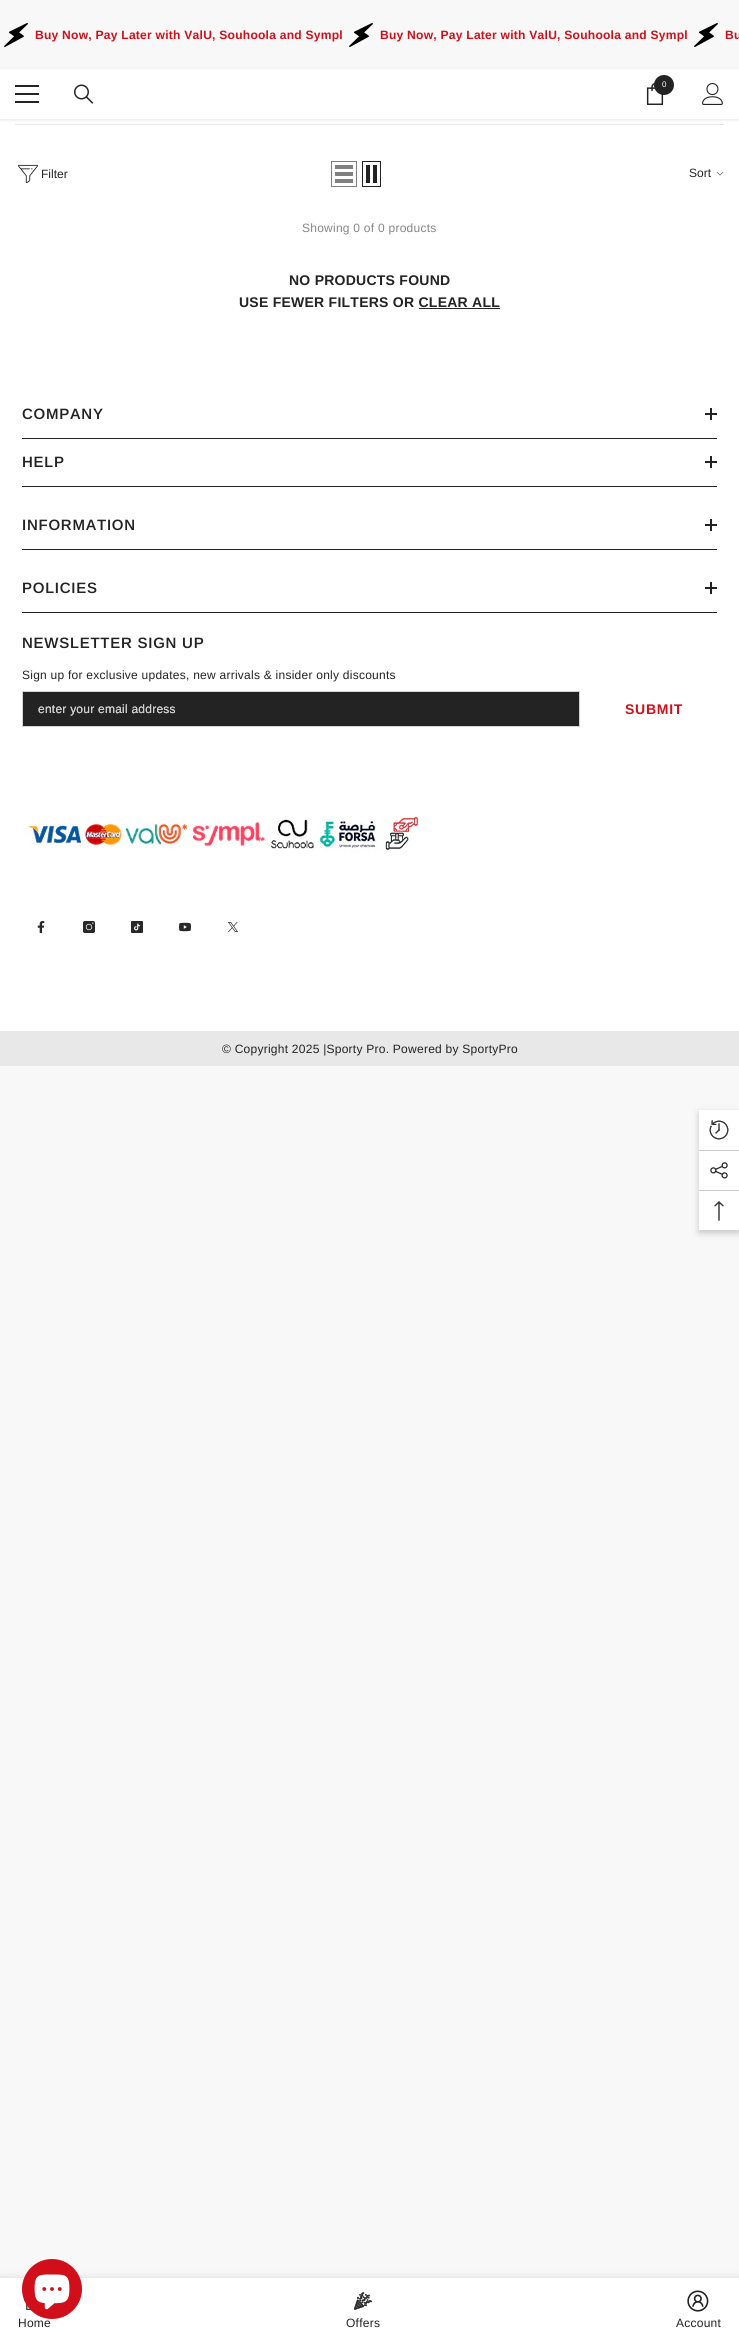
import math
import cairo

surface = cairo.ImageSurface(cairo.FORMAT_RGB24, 739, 2340)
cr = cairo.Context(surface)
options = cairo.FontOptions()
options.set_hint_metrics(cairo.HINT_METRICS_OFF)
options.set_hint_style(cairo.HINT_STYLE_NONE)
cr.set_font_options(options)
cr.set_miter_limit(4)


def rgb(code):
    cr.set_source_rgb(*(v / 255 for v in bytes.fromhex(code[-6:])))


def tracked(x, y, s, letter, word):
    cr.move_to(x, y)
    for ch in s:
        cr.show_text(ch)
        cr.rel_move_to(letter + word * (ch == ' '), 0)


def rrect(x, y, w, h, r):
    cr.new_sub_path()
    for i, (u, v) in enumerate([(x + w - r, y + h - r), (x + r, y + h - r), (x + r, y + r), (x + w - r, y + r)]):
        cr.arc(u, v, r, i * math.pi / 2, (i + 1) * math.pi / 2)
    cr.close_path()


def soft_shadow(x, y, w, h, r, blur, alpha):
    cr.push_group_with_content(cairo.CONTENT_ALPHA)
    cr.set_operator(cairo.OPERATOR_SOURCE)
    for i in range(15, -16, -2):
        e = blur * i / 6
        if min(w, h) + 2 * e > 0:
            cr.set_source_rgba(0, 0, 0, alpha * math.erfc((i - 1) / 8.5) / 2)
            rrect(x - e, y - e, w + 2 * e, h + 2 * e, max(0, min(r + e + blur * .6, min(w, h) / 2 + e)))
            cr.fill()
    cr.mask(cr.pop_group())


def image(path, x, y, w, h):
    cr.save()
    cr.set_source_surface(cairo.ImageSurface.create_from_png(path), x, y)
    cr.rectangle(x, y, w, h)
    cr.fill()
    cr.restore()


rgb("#f8f8f8")
cr.paint()
image("img/1.png", 4, 23, 24, 24)
image("img/1.png", 349, 23, 24, 24)
image("img/1.png", 694, 23, 24, 24)
rgb("#ffffff")
cr.rectangle(0, 119, 739, 912)
cr.fill()
rgb("#e6e6e6")
cr.rectangle(15, 124, 709, 1)
cr.fill()
rgb("#000000")
soft_shadow(0, 70, 739, 50, 0, 1.5, 0.1)
for x, y, w, h, color in [
    (0, 69, 739, 50, "#ffffff"),
    (15, 93, 24, 2, "#232323"),
    (15, 85, 24, 2, "#232323"),
    (15, 101, 24, 2, "#232323"),
]:
    rgb(color)
    cr.rectangle(x, y, w, h)
    cr.fill()
image("img/2.png", 74, 84, 20, 20)
image("img/3.png", 646, 83, 18, 22)
cr.arc(664, 85, 10, 0, 2 * math.pi)
cr.fill()
image("img/4.png", 702, 83, 21, 22)
image("img/5.png", 18, 164, 20, 20)
cr.rectangle(331.5, 161.5, 25, 25)
rgb("#808080")
cr.set_line_width(1)
cr.stroke()
for x, y, w, h, color in [
    (335, 179, 18, 4, "#808080"),
    (335, 172, 18, 4, "#808080"),
    (335, 165, 18, 4, "#808080"),
]:
    rgb(color)
    cr.rectangle(x, y, w, h)
    cr.fill()
cr.rectangle(362.5, 161.5, 18, 25)
rgb("#232323")
cr.stroke()
cr.rectangle(373, 165, 4, 18)
cr.fill()
cr.rectangle(366, 165, 4, 18)
cr.fill()
image("img/6.png", 716, 172, 8, 4)
cr.rectangle(419, 308, 81, 1)
cr.fill()
cr.rectangle(22.5, 691.5, 557, 35)
cr.fill_preserve()
rgb("#d3d3d3")
cr.stroke()
image("img/7.png", 38, 704, 137, 12)
image("img/8.png", 38, 704, 137, 12)
for x, y, w, h, color in [
    (22, 438, 695, 1, "#232323"),
    (710, 408, 2, 12, "#232323"),
    (705, 413, 12, 2, "#232323"),
    (22, 486, 695, 1, "#232323"),
    (710, 456, 2, 12, "#232323"),
    (705, 461, 12, 2, "#232323"),
    (22, 549, 695, 1, "#232323"),
    (710, 519, 2, 12, "#232323"),
    (705, 524, 12, 2, "#232323"),
    (22, 612, 695, 1, "#232323"),
    (710, 582, 2, 12, "#232323"),
    (705, 587, 12, 2, "#232323"),
]:
    rgb(color)
    cr.rectangle(x, y, w, h)
    cr.fill()
image("img/9.png", 22, 815, 398, 39)
image("img/10.png", 37, 921, 8, 12)
image("img/11.png", 83, 921, 12, 12)
image("img/12.png", 131, 921, 12, 12)
image("img/13.png", 179, 922, 12, 10)
image("img/14.png", 228, 922, 10, 10)
rgb("#e8e8e8")
cr.rectangle(0, 1031, 739, 35)
cr.fill()
rgb("#000000")
soft_shadow(0, 2278, 739, 62, 0, 4.5, 0.12)
rgb("#ffffff")
cr.rectangle(0, 2278, 739, 62)
cr.fill()
image("img/15.png", 24, 2299, 7, 11)
image("img/16.png", 354, 2292, 18, 18)
image("img/17.png", 687, 2290, 22, 22)
rgb("#000000")
soft_shadow(699, 1113, 40, 120, 0, 3.5, 0.2)
rgb("#ffffff")
cr.rectangle(699, 1110, 40, 120)
cr.fill()
image("img/18.png", 709, 1120, 20, 20)
rgb("#cccccc")
cr.rectangle(699, 1150, 40, 1)
cr.fill()
image("img/19.png", 710, 1162, 18, 17)
cr.rectangle(699, 1190, 40, 1)
cr.fill()
image("img/20.png", 714, 1201, 10, 20)
cr.select_font_face("Arimo", cairo.FONT_SLANT_NORMAL, cairo.FONT_WEIGHT_BOLD)
cr.set_font_size(12.05)
rgb("#d10f1a")
for x, y, s in [
    (35, 39, "Buy Now, Pay Later with ValU, Souhoola and Sympl"),
    (380, 39, "Buy Now, Pay Later with ValU, Souhoola and Sympl"),
    (725, 39, "Bu"),
]:
    tracked(x, y, s, 0.25, 0)
cr.select_font_face("Arimo")
cr.set_font_size(8)
rgb("#ffffff")
cr.move_to(662, 87)
cr.show_text("0")
cr.set_font_size(12)
rgb("#232323")
cr.move_to(41, 178)
cr.show_text("Filter")
cr.move_to(689, 177)
cr.show_text("Sort")
rgb("#868686")
tracked(302, 232, "Showing 0 of 0 products", 0.25, 0)
cr.select_font_face("Arimo", cairo.FONT_SLANT_NORMAL, cairo.FONT_WEIGHT_BOLD)
cr.set_font_size(14)
rgb("#232323")
tracked(289, 285, "NO PRODUCTS FOUND", 0.25, 0)
tracked(239, 307, "USE FEWER FILTERS OR CLEAR ALL", 0.25, 0)
cr.select_font_face("Arimo SemiBold")
cr.set_font_size(15)
for x, y, s in [
    (22, 419, "COMPANY"),
    (22, 467, "HELP"),
    (22, 530, "INFORMATION"),
    (22, 593, "POLICIES"),
    (22, 648, "NEWSLETTER SIGN UP"),
]:
    tracked(x, y, s, 0.75, 0)
cr.select_font_face("Arimo")
cr.set_font_size(12)
tracked(22, 679, "Sign up for exclusive updates, new arrivals & insider only discounts", 0.25, 0)
cr.select_font_face("Arimo", cairo.FONT_SLANT_NORMAL, cairo.FONT_WEIGHT_BOLD)
cr.set_font_size(14)
rgb("#d10f1a")
tracked(625, 714, "SUBMIT", 0.75, 0)
cr.select_font_face("Arimo")
cr.set_font_size(12)
rgb("#232323")
for x, y, s in [
    (222, 1053, "© Copyright 2025 |Sporty Pro. Powered by SportyPro"),
    (18, 2327, "Home"),
    (346, 2327, "Offers"),
    (676, 2327, "Account"),
]:
    tracked(x, y, s, 0.25, 0)
rgb("#d10f1a")
cr.new_path()
cr.arc(52, 2289, 30, 0, 2 * math.pi)
cr.fill()
image("img/21.png", 34, 2274, 36, 36)
surface.write_to_png("page.png")
